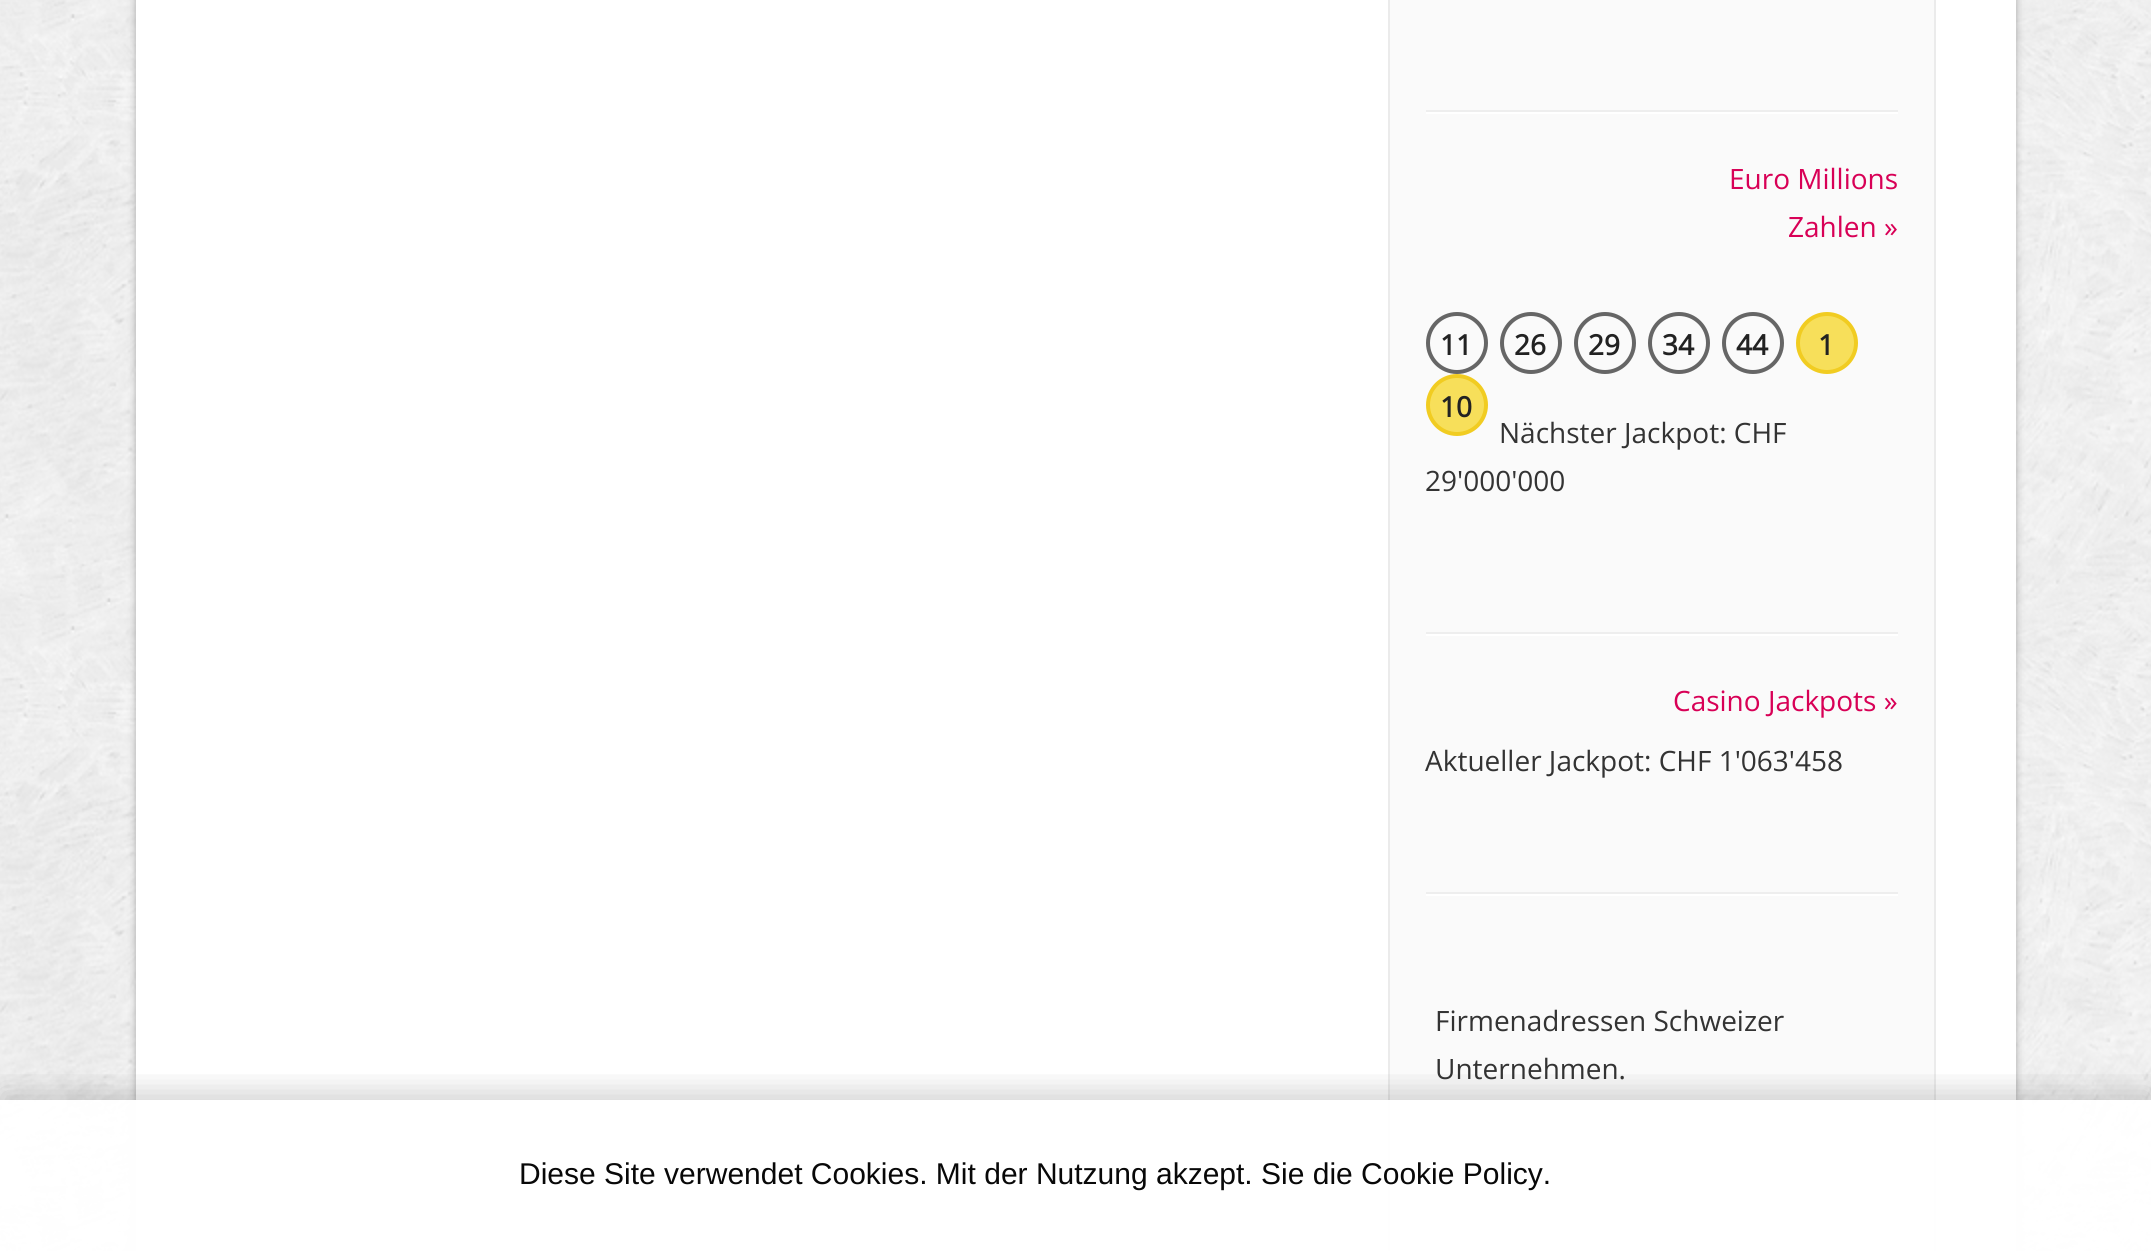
import math
import cairo

surface = cairo.ImageSurface(cairo.FORMAT_RGB24, 2151, 1251)
cr = cairo.Context(surface)
options = cairo.FontOptions()
options.set_hint_metrics(cairo.HINT_METRICS_OFF)
options.set_hint_style(cairo.HINT_STYLE_NONE)
cr.set_font_options(options)
cr.set_miter_limit(4)


def rgb(code):
    cr.set_source_rgb(*(v / 255 for v in bytes.fromhex(code[-6:])))


def rrect(x, y, w, h, r):
    cr.new_sub_path()
    for i, (u, v) in enumerate([(x + w - r, y + h - r), (x + r, y + h - r), (x + r, y + r), (x + w - r, y + r)]):
        cr.arc(u, v, r, i * math.pi / 2, (i + 1) * math.pi / 2)
    cr.close_path()


def soft_shadow(x, y, w, h, r, blur, alpha):
    cr.push_group_with_content(cairo.CONTENT_ALPHA)
    cr.set_operator(cairo.OPERATOR_SOURCE)
    for i in range(15, -16, -2):
        e = blur * i / 6
        if min(w, h) + 2 * e > 0:
            cr.set_source_rgba(0, 0, 0, alpha * math.erfc((i - 1) / 8.5) / 2)
            rrect(x - e, y - e, w + 2 * e, h + 2 * e, max(0, min(r + e + blur * .6, min(w, h) / 2 + e)))
            cr.fill()
    cr.mask(cr.pop_group())


def image(path, x, y, w, h):
    cr.save()
    cr.set_source_surface(cairo.ImageSurface.create_from_png(path), x, y)
    cr.rectangle(x, y, w, h)
    cr.fill()
    cr.restore()


rgb("#ffffff")
cr.paint()
image("img/1.png", 0, 0, 2151, 1251)
rgb("#000000")
soft_shadow(136, -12, 1880, 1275, 0, 4, 0.3)
rgb("#ffffff")
cr.rectangle(136, 0, 1880, 1251)
cr.fill()
rgb("#fafafa")
cr.rectangle(1389, -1, 546, 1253)
cr.fill_preserve()
rgb("#ebebeb")
cr.stroke()
rgb("#eeeeee")
cr.rectangle(1426, 110, 472, 2)
cr.fill()
rgb("#ffffff")
cr.rectangle(1426, 112, 472, 2)
cr.fill()
cr.arc(1457, 343, 29, 0, 2 * math.pi)
rgb("#666666")
cr.set_line_width(4)
cr.stroke()
cr.arc(1531, 343, 29, 0, 2 * math.pi)
cr.stroke()
cr.arc(1605, 343, 29, 0, 2 * math.pi)
cr.stroke()
cr.arc(1679, 343, 29, 0, 2 * math.pi)
cr.stroke()
cr.arc(1753, 343, 29, 0, 2 * math.pi)
cr.stroke()
rgb("#f7df5a")
cr.arc(1827, 343, 29, 0, 2 * math.pi)
cr.fill_preserve()
rgb("#f1cc21")
cr.stroke()
rgb("#f7df5a")
cr.arc(1457, 405, 29, 0, 2 * math.pi)
cr.fill_preserve()
rgb("#f1cc21")
cr.stroke()
for x, y, w, h, color in [
    (1426, 632, 472, 2, "#eeeeee"),
    (1426, 634, 472, 2, "#ffffff"),
    (1426, 892, 472, 2, "#eeeeee"),
    (1426, 894, 472, 2, "#ffffff"),
    (1436, 1248, 472, 2, "#eeeeee"),
    (1436, 1250, 472, 1, "#ffffff"),
]:
    rgb(color)
    cr.rectangle(x, y, w, h)
    cr.fill()
cr.save()
cr.rectangle(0, 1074, 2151, 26)
cr.clip()
rgb("#000000")
soft_shadow(2, 1092, 2148, 148, 0, 15, 0.18)
cr.restore()
cr.set_source_rgba(1, 1, 1, 0.97)
cr.rectangle(0, 1100, 2151, 151)
cr.fill()
cr.select_font_face("Open Sans")
cr.set_font_size(28)
rgb("#d80056")
cr.move_to(1729, 189)
cr.show_text("Euro Millions")
cr.move_to(1788, 237)
cr.show_text("Zahlen »")
cr.select_font_face("Open Sans", cairo.FONT_SLANT_NORMAL, cairo.FONT_WEIGHT_BOLD)
rgb("#222222")
for x, y, s in [
    (1440, 355, "11"),
    (1514, 355, "26"),
    (1588, 355, "29"),
    (1662, 355, "34"),
    (1736, 355, "44"),
    (1818, 355, "1"),
    (1440, 417, "10"),
]:
    cr.move_to(x, y)
    cr.show_text(s)
cr.select_font_face("Open Sans")
rgb("#333333")
cr.move_to(1499, 443)
cr.show_text("Nächster Jackpot: CHF")
cr.move_to(1425, 491)
cr.show_text("29'000'000")
rgb("#d80056")
cr.move_to(1673, 711)
cr.show_text("Casino Jackpots »")
rgb("#333333")
for x, y, s in [
    (1425, 771, "Aktueller Jackpot: CHF 1'063'458"),
    (1435, 1031, "Firmenadressen Schweizer"),
    (1435, 1079, "Unternehmen."),
]:
    cr.move_to(x, y)
    cr.show_text(s)
cr.select_font_face("Liberation Sans")
cr.set_font_size(30)
rgb("#080808")
cr.move_to(519, 1184)
cr.show_text("Diese Site verwendet Cookies. Mit der Nutzung akzept. Sie die Cookie Policy.")
surface.write_to_png("page.png")
